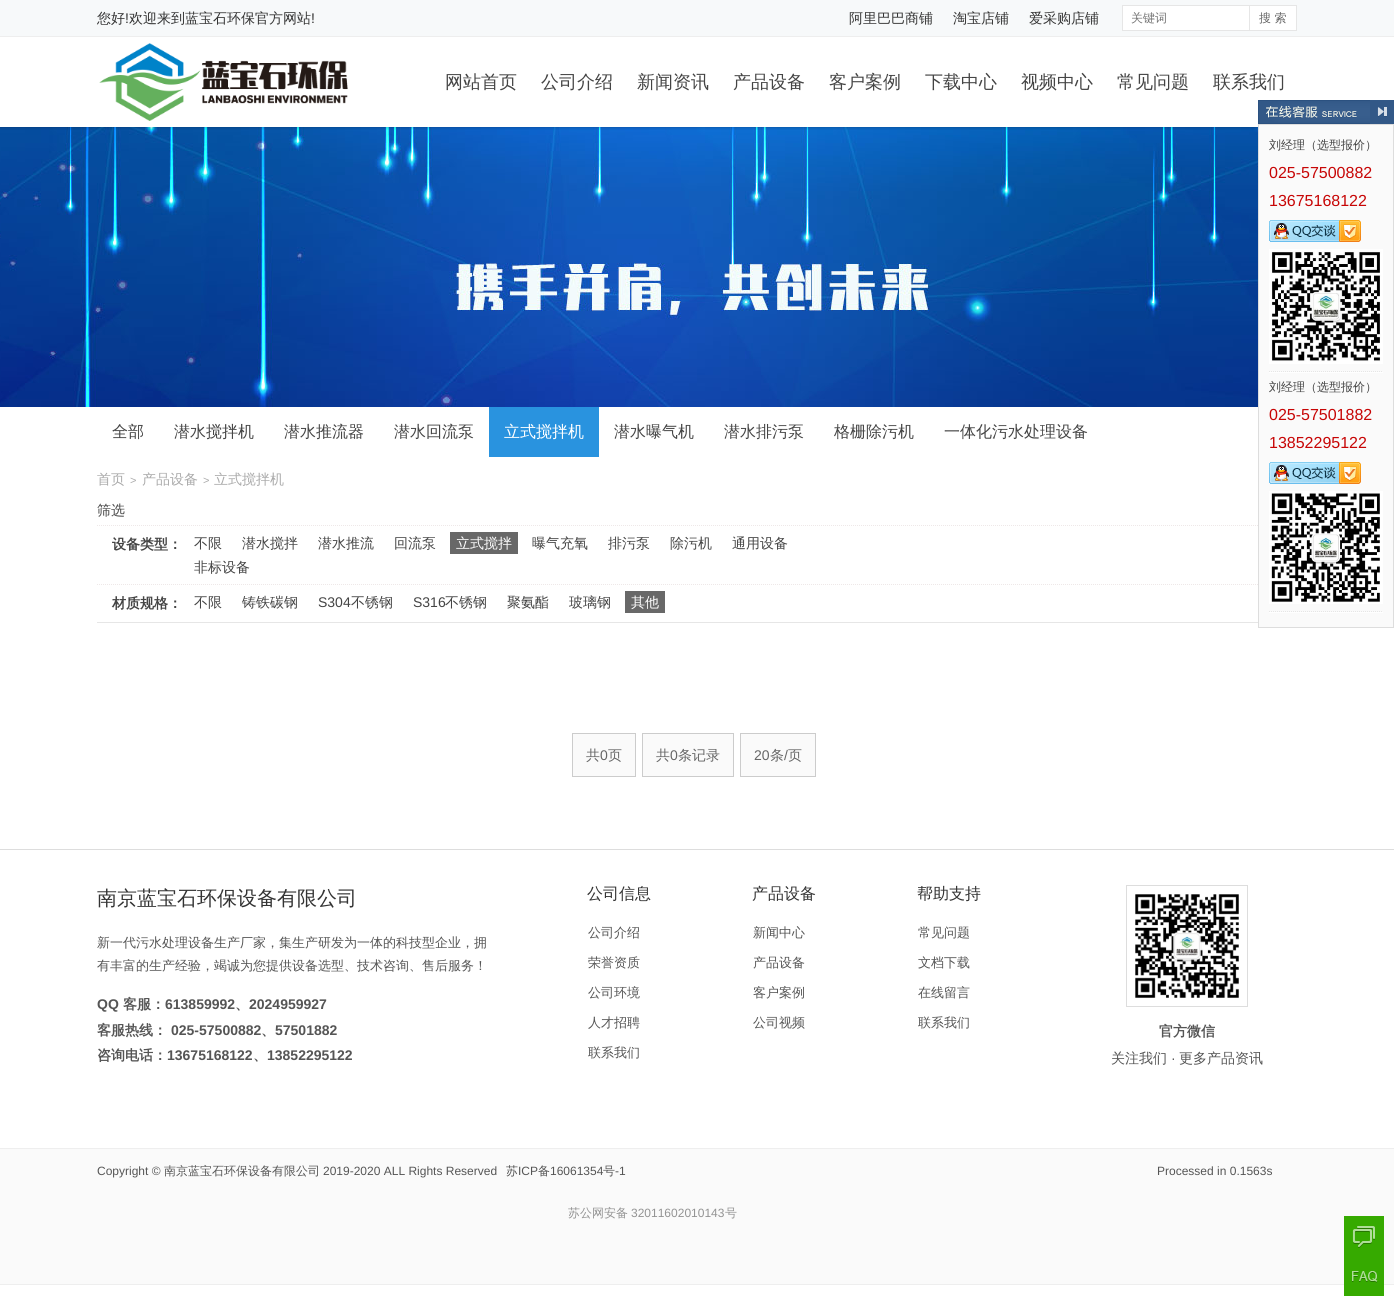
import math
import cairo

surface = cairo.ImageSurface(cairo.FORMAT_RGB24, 1394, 1306)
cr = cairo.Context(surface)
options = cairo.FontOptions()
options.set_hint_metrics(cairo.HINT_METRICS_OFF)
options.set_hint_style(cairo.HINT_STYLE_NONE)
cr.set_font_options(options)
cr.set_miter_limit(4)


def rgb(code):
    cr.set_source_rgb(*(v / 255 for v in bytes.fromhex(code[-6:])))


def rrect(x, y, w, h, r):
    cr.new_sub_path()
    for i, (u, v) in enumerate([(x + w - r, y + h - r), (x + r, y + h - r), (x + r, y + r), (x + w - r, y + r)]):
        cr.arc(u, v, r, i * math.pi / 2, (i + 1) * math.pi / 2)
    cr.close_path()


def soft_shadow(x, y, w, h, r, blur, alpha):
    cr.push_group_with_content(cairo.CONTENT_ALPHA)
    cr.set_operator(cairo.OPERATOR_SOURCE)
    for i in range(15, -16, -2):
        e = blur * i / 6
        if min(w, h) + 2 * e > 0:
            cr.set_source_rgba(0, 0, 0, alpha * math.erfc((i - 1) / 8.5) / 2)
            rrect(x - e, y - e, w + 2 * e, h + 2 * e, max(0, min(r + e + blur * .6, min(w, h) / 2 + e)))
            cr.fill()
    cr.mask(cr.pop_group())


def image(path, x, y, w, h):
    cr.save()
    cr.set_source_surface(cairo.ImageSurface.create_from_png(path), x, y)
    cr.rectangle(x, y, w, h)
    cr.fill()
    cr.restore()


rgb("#ffffff")
cr.paint()
image("img/2.png", 0, 127, 1258, 280)
cr.save()
cr.rectangle(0, 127, 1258, 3)
cr.clip()
rgb("#000000")
soft_shadow(0, 0, 1394, 127, 0, 2, 0.3)
cr.restore()
for x, y, w, h, color in [
    (0, 0, 1394, 36, "#f7f9fa"),
    (0, 36, 1394, 1, "#eeeeee"),
    (1123, 6, 126, 24, "#ffffff"),
    (1122, 5, 127, 1, "#e6e6e6"),
    (1122, 30, 127, 1, "#e6e6e6"),
    (1122, 5, 1, 26, "#e6e6e6"),
]:
    rgb(color)
    cr.rectangle(x, y, w, h)
    cr.fill()
rgb("#ffffff")
cr.rectangle(1249.5, 5.5, 47, 25)
cr.fill_preserve()
rgb("#e6e6e6")
cr.set_line_width(1)
cr.stroke()
image("img/1.png", 99, 43, 249, 78)
image("img/3.png", 1258, 100, 112, 24)
image("img/4.png", 1370, 100, 24, 24)
cr.new_path()
cr.move_to(97, 525.5)
cr.line_to(1297, 525.5)
rgb("#eee8e8")
cr.set_dash([1, 1])
cr.stroke()
cr.new_path()
cr.move_to(97, 584.5)
cr.line_to(1297, 584.5)
cr.stroke()
rgb("#fafafa")
cr.rectangle(1258.5, 124.5, 135, 503)
cr.fill_preserve()
rgb("#dddddd")
cr.set_dash([])
cr.stroke()
rgb("#ffffff")
cr.rectangle(1269, 372, 114, 1)
cr.fill()
cr.new_path()
cr.move_to(1269, 371.5)
cr.line_to(1383, 371.5)
rgb("#e6e6e6")
cr.set_dash([1, 1])
cr.stroke()
image("img/5.png", 1269, 220, 92, 22)
image("img/6.png", 1269, 249, 114, 115)
rgb("#ffffff")
cr.rectangle(1269, 612, 114, 1)
cr.fill()
cr.new_path()
cr.move_to(1269, 611.5)
cr.line_to(1383, 611.5)
rgb("#e6e6e6")
cr.stroke()
image("img/5.png", 1269, 462, 92, 22)
image("img/7.png", 1269, 491, 114, 113)
for x, y, w, h, color in [
    (489, 407, 110, 50, "#2993df"),
    (97, 622, 1161, 1, "#e6e6e6"),
    (450, 532, 68, 22, "#686868"),
    (625, 591, 40, 22, "#686868"),
]:
    rgb(color)
    cr.rectangle(x, y, w, h)
    cr.fill()
rgb("#fafafa")
cr.rectangle(572.5, 733.5, 63, 43)
cr.fill_preserve()
rgb("#cccccc")
cr.set_dash([])
cr.stroke()
rgb("#fafafa")
cr.rectangle(642.5, 733.5, 91, 43)
cr.fill_preserve()
rgb("#cccccc")
cr.stroke()
rgb("#fafafa")
cr.rectangle(740.5, 733.5, 75, 43)
cr.fill_preserve()
rgb("#cccccc")
cr.stroke()
rgb("#dddddd")
cr.rectangle(0, 849, 1394, 1)
cr.fill()
cr.rectangle(1126.5, 885.5, 121, 121)
cr.stroke()
image("img/8.png", 1135, 894, 104, 104)
for x, y, w, h, color in [
    (0, 1149, 1394, 135, "#fafafa"),
    (0, 1148, 1394, 1, "#eeeeee"),
    (0, 1284, 1394, 1, "#eeeeee"),
    (1344, 1216, 40, 80, "#36aa00"),
]:
    rgb(color)
    cr.rectangle(x, y, w, h)
    cr.fill()
image("img/9.png", 1352, 1226, 23, 22)
image("img/10.png", 1352, 1271, 26, 12)
cr.select_font_face("WenQuanYi Zen Hei Medium")
cr.set_font_size(14)
rgb("#333333")
cr.move_to(97, 23)
cr.show_text("您好")
cr.select_font_face("Liberation Sans")
cr.move_to(125, 23)
cr.show_text("!")
cr.select_font_face("WenQuanYi Zen Hei Medium")
cr.move_to(129, 23)
cr.show_text("欢迎来到蓝宝石环保官方网站")
cr.select_font_face("Liberation Sans")
cr.move_to(311, 23)
cr.show_text("!")
cr.select_font_face("WenQuanYi Zen Hei Medium")
for x, y, s in [
    (849, 23, "阿里巴巴商铺"),
    (953, 23, "淘宝店铺"),
    (1029, 23, "爱采购店铺"),
]:
    cr.move_to(x, y)
    cr.show_text(s)
cr.set_font_size(12)
rgb("#757575")
cr.move_to(1131, 22)
cr.show_text("关键词")
rgb("#666666")
cr.move_to(1259, 22)
cr.show_text("搜 索")
cr.set_font_size(18)
rgb("#444444")
for x, y, s in [
    (445, 88, "网站首页"),
    (541, 88, "公司介绍"),
    (637, 88, "新闻资讯"),
    (733, 88, "产品设备"),
    (829, 88, "客户案例"),
    (925, 88, "下载中心"),
    (1021, 88, "视频中心"),
    (1117, 88, "常见问题"),
    (1213, 88, "联系我们"),
]:
    cr.move_to(x, y)
    cr.show_text(s)
cr.set_font_size(12)
cr.move_to(1269, 149)
cr.show_text("刘经理（选型报价）")
cr.select_font_face("Liberation Sans")
cr.set_font_size(16)
rgb("#c70505")
cr.move_to(1269, 178)
cr.show_text("025-57500882")
cr.move_to(1269, 206)
cr.show_text("13675168122")
cr.select_font_face("WenQuanYi Zen Hei Medium")
cr.set_font_size(12)
rgb("#444444")
cr.move_to(1269, 391)
cr.show_text("刘经理（选型报价）")
cr.select_font_face("Liberation Sans")
cr.set_font_size(16)
rgb("#c70505")
cr.move_to(1269, 420)
cr.show_text("025-57501882")
cr.move_to(1269, 448)
cr.show_text("13852295122")
cr.select_font_face("WenQuanYi Zen Hei Medium")
rgb("#444444")
for x, y, s in [
    (112, 437, "全部"),
    (174, 437, "潜水搅拌机"),
    (284, 437, "潜水推流器"),
    (394, 437, "潜水回流泵"),
]:
    cr.move_to(x, y)
    cr.show_text(s)
rgb("#ffffff")
cr.move_to(504, 437)
cr.show_text("立式搅拌机")
rgb("#444444")
for x, y, s in [
    (614, 437, "潜水曝气机"),
    (724, 437, "潜水排污泵"),
    (834, 437, "格栅除污机"),
    (944, 437, "一体化污水处理设备"),
]:
    cr.move_to(x, y)
    cr.show_text(s)
cr.set_font_size(14)
rgb("#aaaaaa")
cr.move_to(97, 484)
cr.show_text("首页")
cr.select_font_face("Liberation Sans")
cr.set_font_size(11)
cr.move_to(130, 484)
cr.show_text(">")
cr.select_font_face("WenQuanYi Zen Hei Medium")
cr.set_font_size(14)
cr.move_to(142, 484)
cr.show_text("产品设备")
cr.select_font_face("Liberation Sans")
cr.set_font_size(11)
cr.move_to(203, 484)
cr.show_text(">")
cr.select_font_face("WenQuanYi Zen Hei Medium")
cr.set_font_size(14)
cr.move_to(214, 484)
cr.show_text("立式搅拌机")
rgb("#444444")
cr.move_to(97, 515)
cr.show_text("筛选")
cr.select_font_face("WenQuanYi Zen Hei", cairo.FONT_SLANT_NORMAL, cairo.FONT_WEIGHT_BOLD)
cr.move_to(112, 549)
cr.show_text("设备类型：")
cr.select_font_face("WenQuanYi Zen Hei Medium")
for x, y, s in [
    (194, 548, "不限"),
    (242, 548, "潜水搅拌"),
    (318, 548, "潜水推流"),
    (394, 548, "回流泵"),
]:
    cr.move_to(x, y)
    cr.show_text(s)
rgb("#ffffff")
cr.move_to(456, 548)
cr.show_text("立式搅拌")
rgb("#444444")
for x, y, s in [
    (532, 548, "曝气充氧"),
    (608, 548, "排污泵"),
    (670, 548, "除污机"),
    (732, 548, "通用设备"),
    (194, 572, "非标设备"),
]:
    cr.move_to(x, y)
    cr.show_text(s)
cr.select_font_face("WenQuanYi Zen Hei", cairo.FONT_SLANT_NORMAL, cairo.FONT_WEIGHT_BOLD)
cr.move_to(112, 608)
cr.show_text("材质规格：")
cr.select_font_face("WenQuanYi Zen Hei Medium")
cr.move_to(194, 607)
cr.show_text("不限")
cr.move_to(242, 607)
cr.show_text("铸铁碳钢")
cr.select_font_face("Liberation Sans")
cr.move_to(318, 607)
cr.show_text("S304")
cr.select_font_face("WenQuanYi Zen Hei Medium")
cr.move_to(351, 607)
cr.show_text("不锈钢")
cr.select_font_face("Liberation Sans")
cr.move_to(413, 607)
cr.show_text("S316")
cr.select_font_face("WenQuanYi Zen Hei Medium")
for x, y, s in [
    (445, 607, "不锈钢"),
    (507, 607, "聚氨酯"),
    (569, 607, "玻璃钢"),
]:
    cr.move_to(x, y)
    cr.show_text(s)
rgb("#ffffff")
cr.move_to(631, 607)
cr.show_text("其他")
rgb("#666666")
cr.move_to(586, 760)
cr.show_text("共")
cr.select_font_face("Liberation Sans")
cr.move_to(600, 760)
cr.show_text("0")
cr.select_font_face("WenQuanYi Zen Hei Medium")
cr.move_to(608, 760)
cr.show_text("页")
cr.move_to(656, 760)
cr.show_text("共")
cr.select_font_face("Liberation Sans")
cr.move_to(670, 760)
cr.show_text("0")
cr.select_font_face("WenQuanYi Zen Hei Medium")
cr.move_to(678, 760)
cr.show_text("条记录")
cr.select_font_face("Liberation Sans")
cr.move_to(754, 760)
cr.show_text("20")
cr.select_font_face("WenQuanYi Zen Hei Medium")
cr.move_to(770, 760)
cr.show_text("条")
cr.select_font_face("Liberation Sans")
cr.move_to(784, 760)
cr.show_text("/")
cr.select_font_face("WenQuanYi Zen Hei Medium")
cr.move_to(788, 760)
cr.show_text("页")
cr.set_font_size(20)
rgb("#333333")
cr.move_to(97, 905)
cr.show_text("南京蓝宝石环保设备有限公司")
cr.set_font_size(13)
rgb("#555555")
cr.move_to(97, 947)
cr.show_text("新一代污水处理设备生产厂家，集生产研发为一体的科技型企业，拥")
cr.move_to(97, 970)
cr.show_text("有丰富的生产经验，竭诚为您提供设备选型、技术咨询、售后服务！")
cr.select_font_face("Liberation Sans", cairo.FONT_SLANT_NORMAL, cairo.FONT_WEIGHT_BOLD)
cr.set_font_size(14)
cr.move_to(97, 1009)
cr.show_text("QQ")
cr.select_font_face("WenQuanYi Zen Hei", cairo.FONT_SLANT_NORMAL, cairo.FONT_WEIGHT_BOLD)
cr.move_to(123, 1009)
cr.show_text("客服：")
cr.select_font_face("Liberation Sans", cairo.FONT_SLANT_NORMAL, cairo.FONT_WEIGHT_BOLD)
cr.move_to(165, 1009)
cr.show_text("613859992")
cr.select_font_face("WenQuanYi Zen Hei", cairo.FONT_SLANT_NORMAL, cairo.FONT_WEIGHT_BOLD)
cr.move_to(235, 1009)
cr.show_text("、")
cr.select_font_face("Liberation Sans", cairo.FONT_SLANT_NORMAL, cairo.FONT_WEIGHT_BOLD)
cr.move_to(249, 1009)
cr.show_text("2024959927")
cr.select_font_face("WenQuanYi Zen Hei", cairo.FONT_SLANT_NORMAL, cairo.FONT_WEIGHT_BOLD)
cr.move_to(97, 1035)
cr.show_text("客服热线：")
cr.select_font_face("Liberation Sans", cairo.FONT_SLANT_NORMAL, cairo.FONT_WEIGHT_BOLD)
cr.move_to(171, 1035)
cr.show_text("025-57500882")
cr.select_font_face("WenQuanYi Zen Hei", cairo.FONT_SLANT_NORMAL, cairo.FONT_WEIGHT_BOLD)
cr.move_to(261, 1035)
cr.show_text("、")
cr.select_font_face("Liberation Sans", cairo.FONT_SLANT_NORMAL, cairo.FONT_WEIGHT_BOLD)
cr.move_to(275, 1035)
cr.show_text("57501882")
cr.select_font_face("WenQuanYi Zen Hei", cairo.FONT_SLANT_NORMAL, cairo.FONT_WEIGHT_BOLD)
cr.move_to(97, 1060)
cr.show_text("咨询电话：")
cr.select_font_face("Liberation Sans", cairo.FONT_SLANT_NORMAL, cairo.FONT_WEIGHT_BOLD)
cr.move_to(167, 1060)
cr.show_text("13675168122")
cr.select_font_face("WenQuanYi Zen Hei", cairo.FONT_SLANT_NORMAL, cairo.FONT_WEIGHT_BOLD)
cr.move_to(253, 1060)
cr.show_text("、")
cr.select_font_face("Liberation Sans", cairo.FONT_SLANT_NORMAL, cairo.FONT_WEIGHT_BOLD)
cr.move_to(267, 1060)
cr.show_text("13852295122")
cr.select_font_face("WenQuanYi Zen Hei Medium")
cr.set_font_size(16)
rgb("#333333")
cr.move_to(587, 899)
cr.show_text("公司信息")
cr.set_font_size(13)
rgb("#555555")
for x, y, s in [
    (588, 937, "公司介绍"),
    (588, 967, "荣誉资质"),
    (588, 997, "公司环境"),
    (588, 1027, "人才招聘"),
    (588, 1057, "联系我们"),
]:
    cr.move_to(x, y)
    cr.show_text(s)
cr.set_font_size(16)
rgb("#333333")
cr.move_to(752, 899)
cr.show_text("产品设备")
cr.set_font_size(13)
rgb("#555555")
for x, y, s in [
    (753, 937, "新闻中心"),
    (753, 967, "产品设备"),
    (753, 997, "客户案例"),
    (753, 1027, "公司视频"),
]:
    cr.move_to(x, y)
    cr.show_text(s)
cr.set_font_size(16)
rgb("#333333")
cr.move_to(917, 899)
cr.show_text("帮助支持")
cr.set_font_size(13)
rgb("#555555")
for x, y, s in [
    (918, 937, "常见问题"),
    (918, 967, "文档下载"),
    (918, 997, "在线留言"),
    (918, 1027, "联系我们"),
]:
    cr.move_to(x, y)
    cr.show_text(s)
cr.select_font_face("WenQuanYi Zen Hei", cairo.FONT_SLANT_NORMAL, cairo.FONT_WEIGHT_BOLD)
cr.set_font_size(14)
cr.move_to(1159, 1036)
cr.show_text("官方微信")
cr.select_font_face("WenQuanYi Zen Hei Medium")
cr.move_to(1111, 1063)
cr.show_text("关注我们")
cr.select_font_face("Liberation Sans")
cr.move_to(1171, 1063)
cr.show_text("·")
cr.select_font_face("WenQuanYi Zen Hei Medium")
cr.move_to(1179, 1063)
cr.show_text("更多产品资讯")
cr.select_font_face("Liberation Sans")
cr.set_font_size(12)
cr.move_to(97, 1175)
cr.show_text("Copyright ©")
cr.select_font_face("WenQuanYi Zen Hei Medium")
cr.move_to(164, 1175)
cr.show_text("南京蓝宝石环保设备有限公司")
cr.select_font_face("Liberation Sans")
cr.move_to(323, 1175)
cr.show_text("2019-2020 ALL Rights Reserved")
cr.select_font_face("WenQuanYi Zen Hei Medium")
cr.move_to(506, 1175)
cr.show_text("苏")
cr.select_font_face("Liberation Sans")
cr.move_to(518, 1175)
cr.show_text("ICP")
cr.select_font_face("WenQuanYi Zen Hei Medium")
cr.move_to(538, 1175)
cr.show_text("备")
cr.select_font_face("Liberation Sans")
cr.move_to(550, 1175)
cr.show_text("16061354")
cr.select_font_face("WenQuanYi Zen Hei Medium")
cr.move_to(603, 1175)
cr.show_text("号")
cr.select_font_face("Liberation Sans")
cr.move_to(615, 1175)
cr.show_text("-1")
cr.select_font_face("WenQuanYi Zen Hei Medium")
rgb("#939393")
cr.move_to(568, 1217)
cr.show_text("苏公网安备")
cr.select_font_face("Liberation Sans")
cr.move_to(631, 1217)
cr.show_text("32011602010143")
cr.select_font_face("WenQuanYi Zen Hei Medium")
cr.move_to(725, 1217)
cr.show_text("号")
cr.select_font_face("Liberation Sans")
rgb("#555555")
cr.move_to(1157, 1175)
cr.show_text("Processed in 0.1563s")
surface.write_to_png("page.png")
